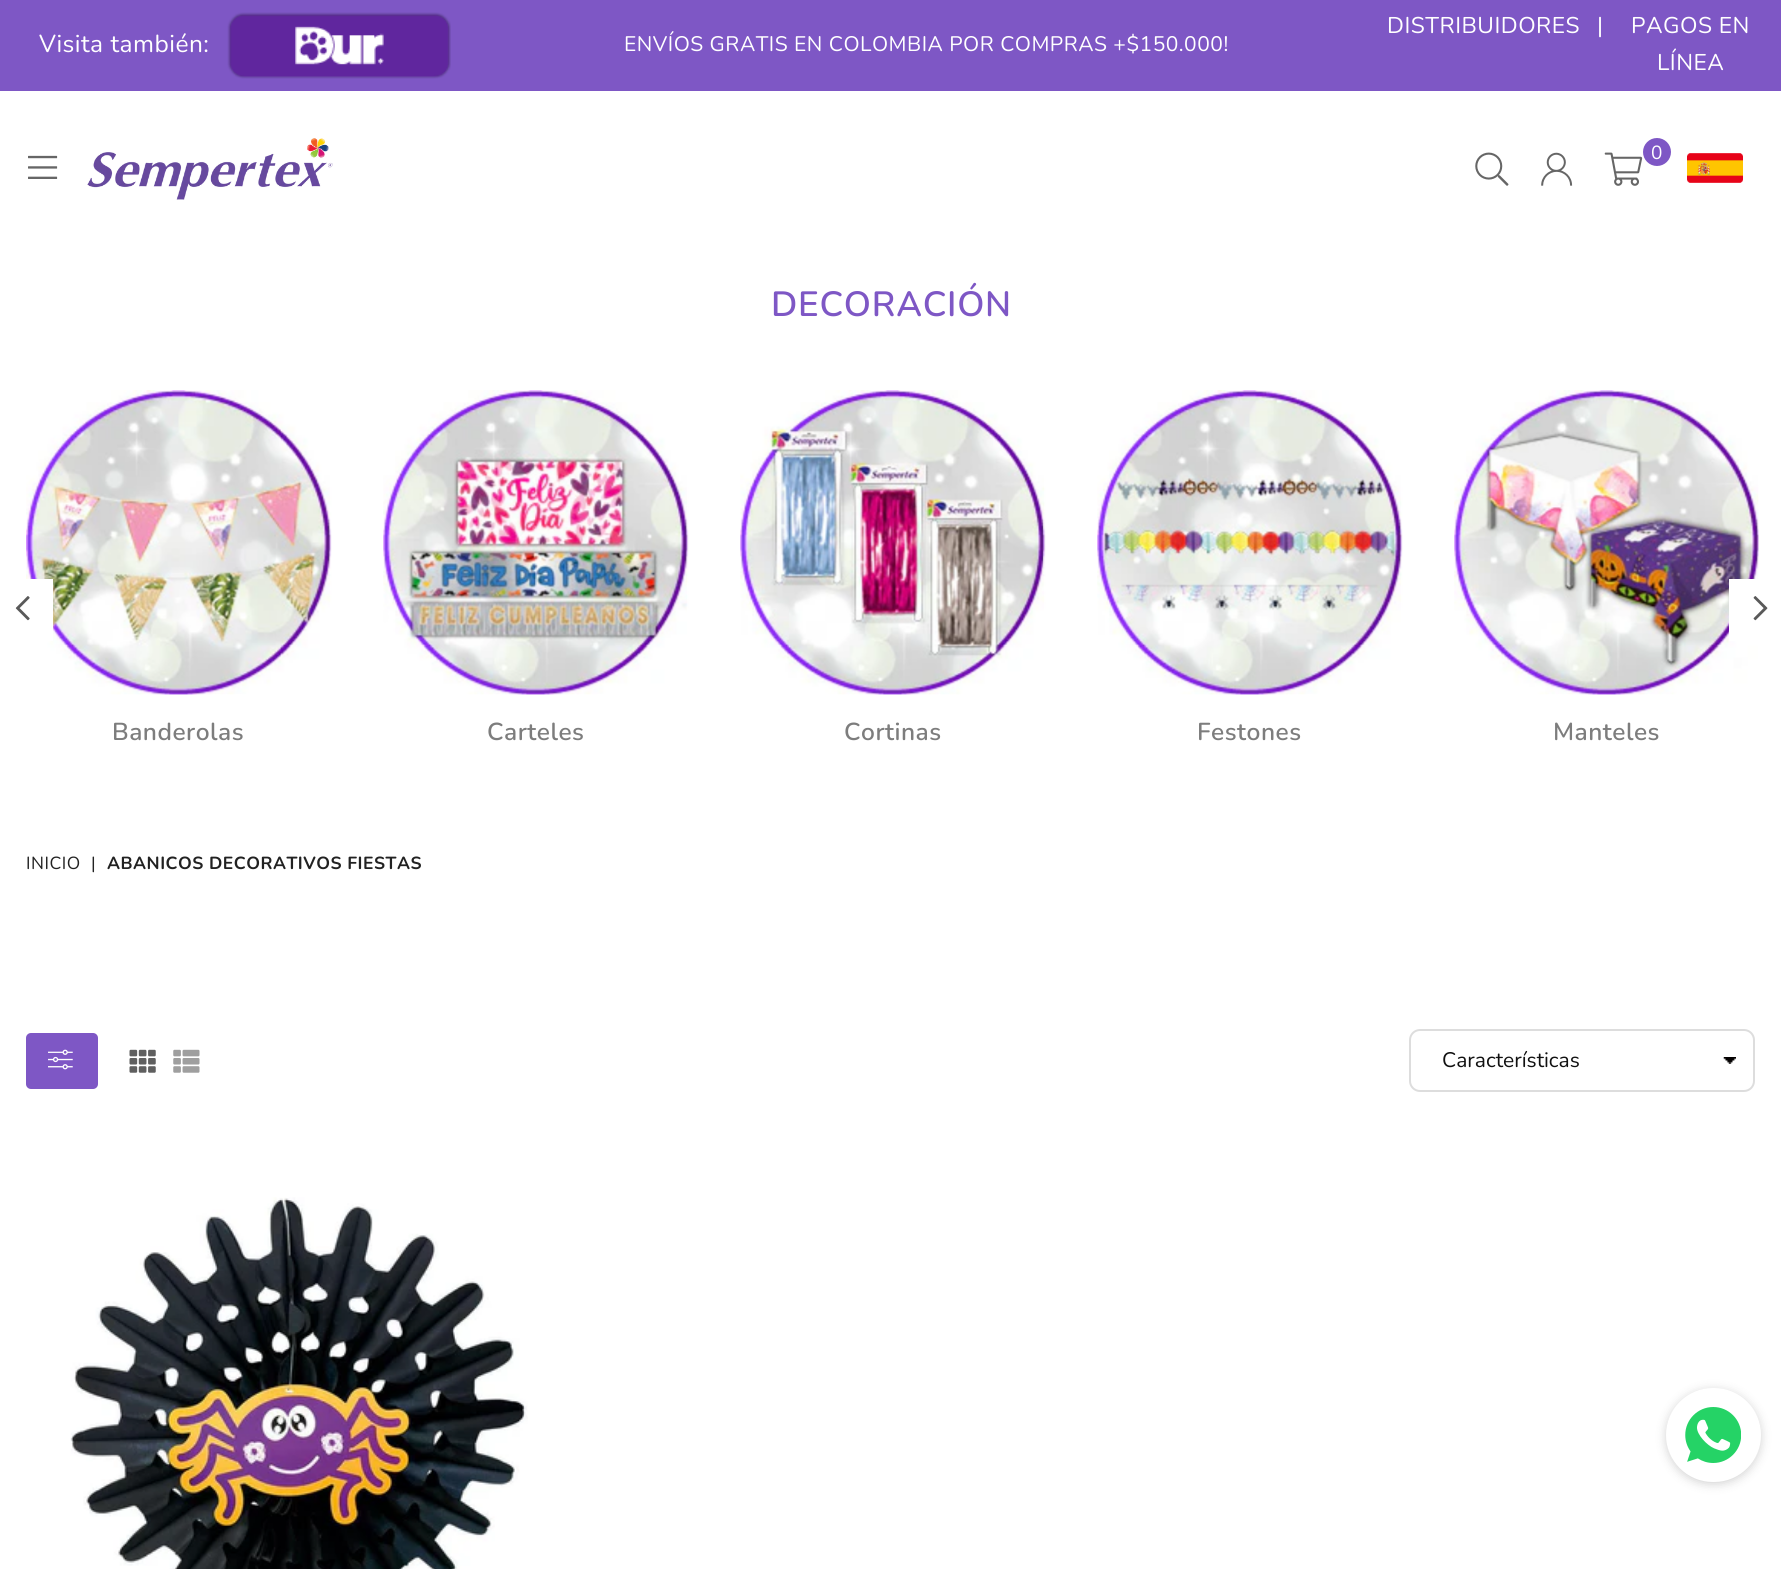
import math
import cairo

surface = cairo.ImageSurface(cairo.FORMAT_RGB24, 1781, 1569)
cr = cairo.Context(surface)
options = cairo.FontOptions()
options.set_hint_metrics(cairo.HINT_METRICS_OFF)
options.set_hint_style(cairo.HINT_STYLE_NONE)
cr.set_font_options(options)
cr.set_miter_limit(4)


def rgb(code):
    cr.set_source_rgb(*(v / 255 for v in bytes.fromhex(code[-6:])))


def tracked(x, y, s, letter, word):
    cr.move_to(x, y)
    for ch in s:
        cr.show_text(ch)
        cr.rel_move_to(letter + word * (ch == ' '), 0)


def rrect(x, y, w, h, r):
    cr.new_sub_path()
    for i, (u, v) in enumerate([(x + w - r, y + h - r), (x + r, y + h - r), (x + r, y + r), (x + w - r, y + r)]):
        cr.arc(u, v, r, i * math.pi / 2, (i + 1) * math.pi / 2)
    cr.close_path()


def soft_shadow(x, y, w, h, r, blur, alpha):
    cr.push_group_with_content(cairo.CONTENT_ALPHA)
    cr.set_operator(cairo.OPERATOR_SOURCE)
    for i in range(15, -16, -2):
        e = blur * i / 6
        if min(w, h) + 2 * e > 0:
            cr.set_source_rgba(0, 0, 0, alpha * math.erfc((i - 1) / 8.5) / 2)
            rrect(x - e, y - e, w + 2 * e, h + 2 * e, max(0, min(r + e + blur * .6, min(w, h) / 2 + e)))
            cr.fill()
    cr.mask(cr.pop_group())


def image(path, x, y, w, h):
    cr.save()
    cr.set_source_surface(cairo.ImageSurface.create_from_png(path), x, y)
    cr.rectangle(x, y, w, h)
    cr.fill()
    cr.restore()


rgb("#ffffff")
cr.paint()
rgb("#7e57c5")
cr.rectangle(0, 0, 1781, 91)
cr.fill()
image("img/1.png", 227, 12, 224, 67)
image("img/2.png", 87, 138, 246, 62)
image("img/3.png", 1475, 152, 34, 34)
image("img/4.png", 1541, 152, 32, 34)
image("img/5.png", 1604, 152, 39, 34)
cr.arc(1657, 152, 14, 0, 2 * math.pi)
cr.fill()
image("img/6.png", 1687, 153, 56, 30)
image("img/7.png", 28, 155, 30, 24)
image("img/10.png", 26, 390, 306, 305)
rgb("#ffffff")
cr.rectangle(26, 579, 27, 62)
cr.fill()
image("img/8.png", 15, 596, 15, 25)
image("img/14.png", 1454, 390, 305, 305)
cr.rectangle(1729, 579, 30, 62)
cr.fill()
image("img/9.png", 1753, 596, 15, 25)
image("img/11.png", 383, 390, 306, 305)
image("img/12.png", 740, 390, 306, 305)
image("img/13.png", 1097, 390, 306, 305)
rgb("#7e57c5")
rrect(26, 1033, 72, 56, 5)
cr.fill()
image("img/15.png", 48, 1049, 25, 21)
image("img/16.png", 129, 1049, 27, 24)
image("img/17.png", 173, 1049, 27, 24)
image("img/18.png", 1723, 1057, 13, 7)
rrect(1410, 1030, 344, 61, 10)
rgb("#dddddd")
cr.stroke()
image("img/19.png", 70, 1197, 458, 372)
rgb("#1b1b1b")
soft_shadow(1666, 1390, 95, 94, 47, 5, 0.2)
rgb("#ffffff")
rrect(1667, 1389, 93, 92, 46)
cr.fill_preserve()
cr.stroke()
image("img/20.png", 1685, 1407, 56, 56)
cr.select_font_face("Nunito")
cr.set_font_size(24.5)
tracked(39, 52, "Visita también:", 0.5, 0)
cr.set_font_size(21)
tracked(624, 51, "ENVÍOS GRATIS EN COLOMBIA POR COMPRAS +$150.000!", 0.5, 0)
cr.set_font_size(22.75)
for x, y, s in [
    (1387, 33, "DISTRIBUIDORES"),
    (1597, 33, "|"),
    (1631, 33, "PAGOS EN"),
    (1657, 70, "LÍNEA"),
]:
    tracked(x, y, s, 0.5, 0)
cr.set_font_size(19)
tracked(1651, 159, "0", 0.5, 0)
cr.select_font_face("Nunito SemiBold")
cr.set_font_size(35)
rgb("#7e57c5")
tracked(771, 316, "DECORACIÓN", 0.75, 0)
cr.set_font_size(24.5)
rgb("#7d7d7d")
for x, y, s in [
    (112, 740, "Banderolas"),
    (487, 740, "Carteles"),
    (844, 740, "Cortinas"),
    (1197, 740, "Festones"),
    (1553, 740, "Manteles"),
]:
    tracked(x, y, s, 0.5, 0)
cr.select_font_face("Nunito")
cr.set_font_size(17.5)
rgb("#222222")
tracked(26, 869, "INICIO", 0.5, 0)
tracked(91, 869, "|", 0.5, 0)
cr.select_font_face("Nunito", cairo.FONT_SLANT_NORMAL, cairo.FONT_WEIGHT_BOLD)
tracked(107, 869, "ABANICOS DECORATIVOS FIESTAS", 0.5, 0)
cr.select_font_face("Nunito")
cr.set_font_size(21)
rgb("#111111")
cr.move_to(1442, 1067)
cr.show_text("Características")
surface.write_to_png("page.png")
